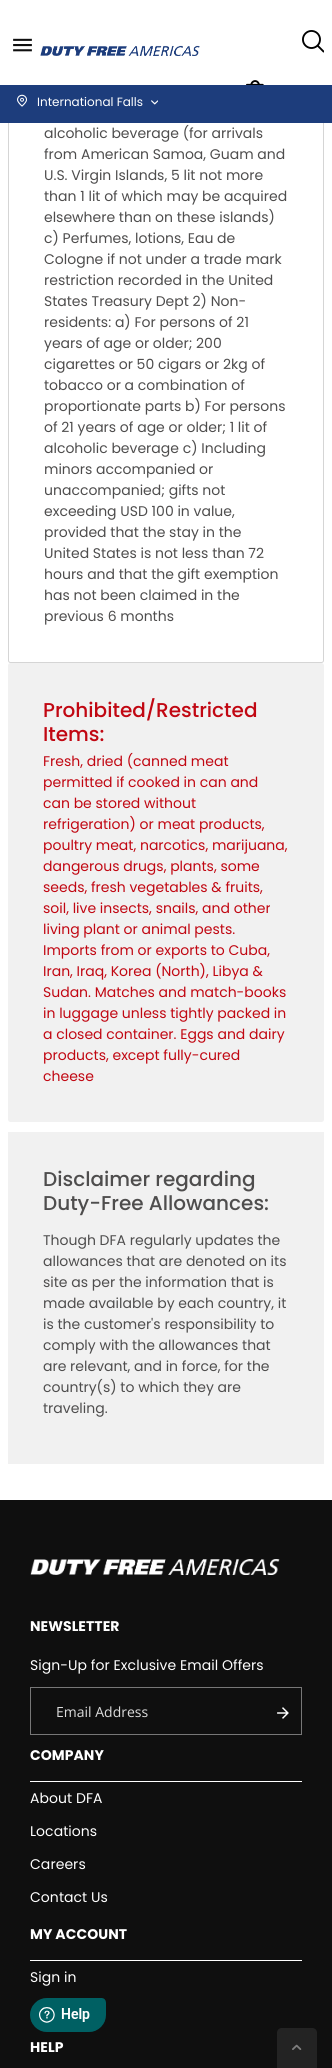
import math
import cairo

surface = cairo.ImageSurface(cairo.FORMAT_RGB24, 332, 2068)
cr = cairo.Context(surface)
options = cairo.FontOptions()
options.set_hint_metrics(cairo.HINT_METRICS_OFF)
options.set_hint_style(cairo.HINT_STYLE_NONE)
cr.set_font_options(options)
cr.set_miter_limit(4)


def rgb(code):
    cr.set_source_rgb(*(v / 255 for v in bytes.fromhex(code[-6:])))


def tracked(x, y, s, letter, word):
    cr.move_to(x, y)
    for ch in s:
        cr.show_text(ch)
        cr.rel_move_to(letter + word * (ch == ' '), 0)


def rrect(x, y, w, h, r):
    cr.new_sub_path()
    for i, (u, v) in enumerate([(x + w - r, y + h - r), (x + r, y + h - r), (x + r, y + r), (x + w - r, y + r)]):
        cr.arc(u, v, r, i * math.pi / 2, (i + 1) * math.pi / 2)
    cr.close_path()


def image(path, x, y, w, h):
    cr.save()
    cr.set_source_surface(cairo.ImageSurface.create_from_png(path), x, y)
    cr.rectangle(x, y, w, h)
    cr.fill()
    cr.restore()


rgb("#ffffff")
cr.paint()
rrect(8.5, -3.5, 315, 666, 2)
rgb("#d5d5d5")
cr.set_line_width(1)
cr.stroke()
rgb("#ffffff")
cr.rectangle(8, 0, 316, 85)
cr.fill()
image("img/1.png", 13, 38, 19, 14)
image("img/2.png", 302, 30, 22, 23)
image("img/3.png", 246, 80, 18, 5)
image("img/4.png", 40, 45, 160, 11)
rgb("#1d3d7c")
cr.rectangle(0, 85, 332, 38)
cr.fill()
image("img/5.png", 17, 94, 10, 13)
image("img/6.png", 151, 100, 7, 5)
rgb("#f1f1f1")
rrect(8, 663, 316, 459, 2.5)
cr.fill()
cr.rectangle(8, 1132, 316, 332)
cr.fill()
rgb("#0f0f0f")
cr.rectangle(0, 1500, 332, 568)
cr.fill()
image("img/7.png", 30, 1559, 250, 16)
cr.rectangle(30.5, 1687.5, 271, 47)
rgb("#777777")
cr.stroke()
image("img/8.png", 277, 1707, 12, 12)
rgb("#ffffff")
cr.rectangle(30, 1781, 272, 1)
cr.fill()
cr.rectangle(30, 1960, 272, 1)
cr.fill()
rgb("#232323")
cr.new_path()
cr.move_to(282, 2028)
cr.line_to(312, 2028)
cr.curve_to(315, 2028, 317, 2030, 317, 2033)
cr.line_to(317, 2068)
cr.line_to(277, 2068)
cr.line_to(277, 2033)
cr.curve_to(277, 2030, 279, 2028, 282, 2028)
cr.close_path()
cr.fill()
image("img/9.png", 292, 2044, 10, 6)
image("img/10.png", 30, 1998, 76, 34)
cr.select_font_face("Poppins")
cr.set_font_size(12)
rgb("#ffffff")
cr.move_to(37, 106)
cr.show_text("International Falls")
cr.set_font_size(14)
rgb("#4e4d4d")
for x, y, s in [
    (44, 138, "alcoholic beverage (for arrivals"),
    (44, 159, "from American Samoa, Guam and"),
    (44, 180, "U.S. Virgin Islands, 5 lit not more"),
    (44, 201, "than 1 lit of which may be acquired"),
    (44, 222, "elsewhere than on these islands)"),
    (44, 243, "c) Perfumes, lotions, Eau de"),
    (44, 264, "Cologne if not under a trade mark"),
    (44, 285, "restriction recorded in the United"),
    (44, 306, "States Treasury Dept 2) Non-"),
    (44, 327, "residents: a) For persons of 21"),
    (44, 348, "years of age or older; 200"),
    (44, 369, "cigarettes or 50 cigars or 2kg of"),
    (44, 390, "tobacco or a combination of"),
    (44, 411, "proportionate parts b) For persons"),
    (44, 432, "of 21 years of age or older; 1 lit of"),
    (44, 453, "alcoholic beverage c) Including"),
    (44, 474, "minors accompanied or"),
    (44, 495, "unaccompanied; gifts not"),
    (44, 516, "exceeding USD 100 in value,"),
    (44, 537, "provided that the stay in the"),
    (44, 558, "United States is not less than 72"),
    (44, 579, "hours and that the gift exemption"),
    (44, 600, "has not been claimed in the"),
    (44, 621, "previous 6 months"),
]:
    cr.move_to(x, y)
    cr.show_text(s)
cr.select_font_face("Poppins Medium")
cr.set_font_size(20)
rgb("#c10712")
cr.move_to(43, 717)
cr.show_text("Prohibited/Restricted")
cr.move_to(43, 741)
cr.show_text("Items:")
cr.select_font_face("Poppins")
cr.set_font_size(14)
for x, y, s in [
    (43, 766, "Fresh, dried (canned meat"),
    (43, 787, "permitted if cooked in can and"),
    (43, 808, "can be stored without"),
    (43, 829, "refrigeration) or meat products,"),
    (43, 850, "poultry meat, narcotics, marijuana,"),
    (43, 871, "dangerous drugs, plants, some"),
    (43, 892, "seeds, fresh vegetables & fruits,"),
    (43, 913, "soil, live insects, snails, and other"),
    (43, 934, "living plant or animal pests."),
    (43, 955, "Imports from or exports to Cuba,"),
    (43, 976, "Iran, Iraq, Korea (North), Libya &"),
    (43, 997, "Sudan. Matches and match-books"),
    (43, 1018, "in luggage unless tightly packed in"),
    (43, 1039, "a closed container. Eggs and dairy"),
    (43, 1060, "products, except fully-cured"),
    (43, 1081, "cheese"),
]:
    cr.move_to(x, y)
    cr.show_text(s)
cr.select_font_face("Poppins Medium")
cr.set_font_size(20)
rgb("#4e4d4d")
cr.move_to(43, 1186)
cr.show_text("Disclaimer regarding")
cr.move_to(43, 1210)
cr.show_text("Duty-Free Allowances:")
cr.select_font_face("Poppins")
cr.set_font_size(14)
for x, y, s in [
    (43, 1245, "Though DFA regularly updates the"),
    (43, 1266, "allowances that are denoted on its"),
    (43, 1287, "site as per the information that is"),
    (43, 1308, "made available by each country, it"),
    (43, 1329, "is the customer's responsibility to"),
    (43, 1350, "comply with the allowances that"),
    (43, 1371, "are relevant, and in force, for the"),
    (43, 1392, "country(s) to which they are"),
    (43, 1413, "traveling."),
]:
    cr.move_to(x, y)
    cr.show_text(s)
cr.select_font_face("Poppins", cairo.FONT_SLANT_NORMAL, cairo.FONT_WEIGHT_BOLD)
rgb("#ffffff")
tracked(30, 1631, "NEWSLETTER", 0.05, 0)
cr.select_font_face("Poppins")
tracked(30, 1670, "Sign-Up for Exclusive Email Offers", 0.05, 0)
cr.select_font_face("Open Sans")
rgb("#dddddd")
cr.move_to(56, 1717)
cr.show_text("Email Address")
cr.select_font_face("Poppins", cairo.FONT_SLANT_NORMAL, cairo.FONT_WEIGHT_BOLD)
rgb("#ffffff")
tracked(30, 1760, "COMPANY", 0.05, 0)
cr.select_font_face("Poppins")
for x, y, s in [
    (30, 1803, "About DFA"),
    (30, 1836, "Locations"),
    (30, 1869, "Careers"),
    (30, 1902, "Contact Us"),
]:
    tracked(x, y, s, 0.05, 0)
cr.select_font_face("Poppins", cairo.FONT_SLANT_NORMAL, cairo.FONT_WEIGHT_BOLD)
tracked(30, 1939, "MY ACCOUNT", 0.05, 0)
cr.select_font_face("Poppins")
tracked(30, 1982, "Sign in", 0.05, 0)
cr.select_font_face("Poppins", cairo.FONT_SLANT_NORMAL, cairo.FONT_WEIGHT_BOLD)
tracked(30, 2052, "HELP", 0.05, 0)
surface.write_to_png("page.png")
